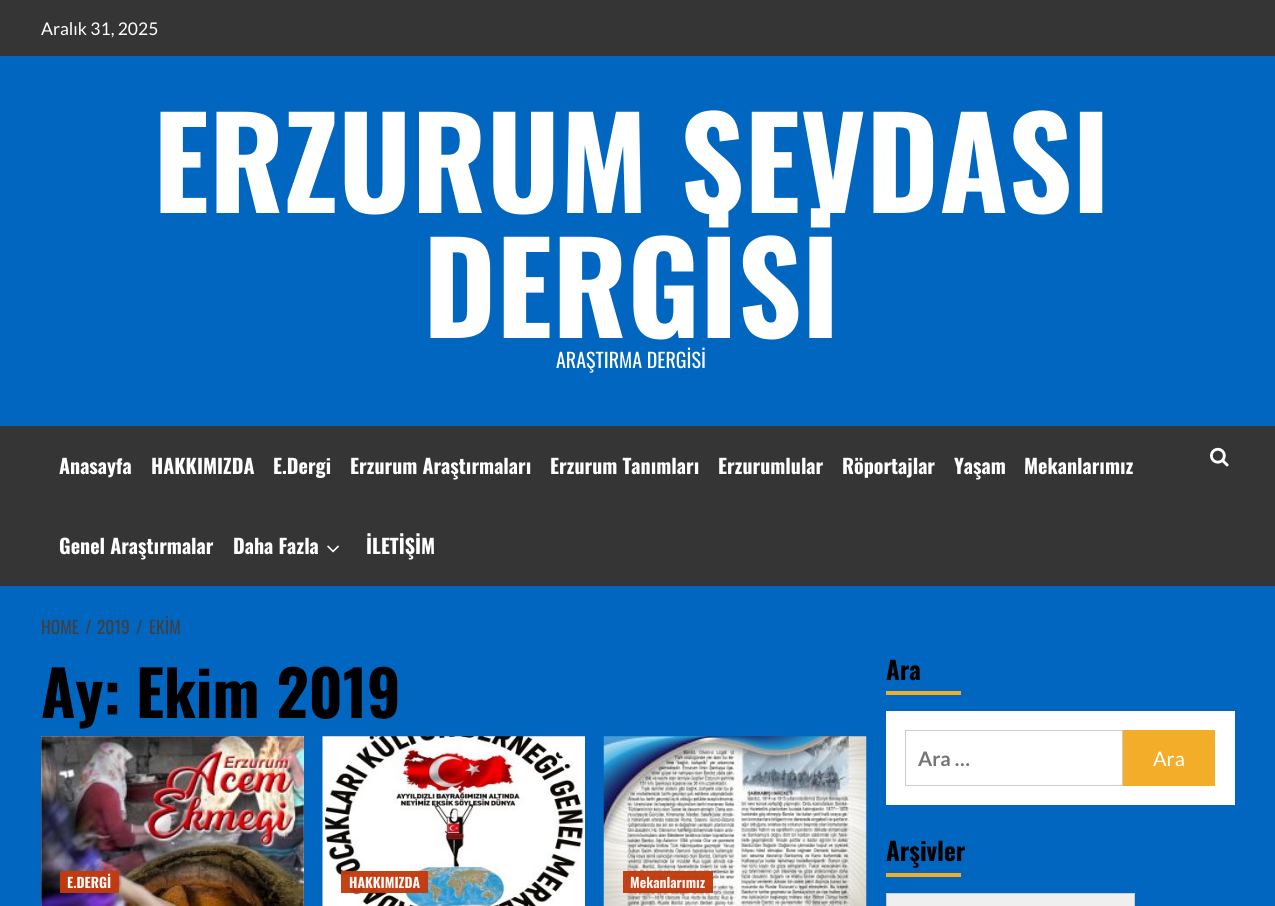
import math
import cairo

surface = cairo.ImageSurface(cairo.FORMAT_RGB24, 1275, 906)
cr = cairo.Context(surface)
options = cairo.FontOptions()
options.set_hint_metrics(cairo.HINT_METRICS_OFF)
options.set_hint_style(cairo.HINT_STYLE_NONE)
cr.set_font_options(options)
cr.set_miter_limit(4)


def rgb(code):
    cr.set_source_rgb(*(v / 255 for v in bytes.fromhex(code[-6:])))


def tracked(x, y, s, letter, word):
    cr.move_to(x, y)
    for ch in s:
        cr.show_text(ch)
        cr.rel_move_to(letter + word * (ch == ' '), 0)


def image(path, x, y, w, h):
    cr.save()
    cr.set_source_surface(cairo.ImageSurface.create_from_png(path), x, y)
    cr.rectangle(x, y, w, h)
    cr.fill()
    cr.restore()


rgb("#0066bf")
cr.paint()
rgb("#353535")
cr.rectangle(0, 0, 1275, 56)
cr.fill()
cr.rectangle(0, 426, 1275, 160)
cr.fill()
image("img/1.png", 327, 545, 12, 8)
image("img/2.png", 1210, 447, 19, 20)
rgb("#d8d8d8")
cr.rectangle(41, 736, 263, 170)
cr.fill()
image("img/3.png", 41, 736, 263, 170)
cr.set_source_rgba(0.761, 0.231, 0.055, 0.96)
cr.rectangle(60, 871, 59, 22)
cr.fill()
image("img/4.png", 322, 736, 263, 170)
cr.rectangle(341, 871, 87, 22)
cr.fill()
image("img/5.png", 603, 736, 264, 170)
cr.rectangle(623, 871, 90, 22)
cr.fill()
rgb("#f3ad29")
cr.rectangle(886, 691, 75, 4)
cr.fill()
rgb("#ffffff")
cr.rectangle(886, 711, 349, 94)
cr.fill()
cr.rectangle(905.5, 730.5, 217, 55)
rgb("#cccccc")
cr.set_line_width(1)
cr.stroke()
rgb("#f3ad29")
cr.rectangle(1123, 730, 92, 56)
cr.fill()
cr.rectangle(886, 873, 75, 4)
cr.fill()
rgb("#efefef")
cr.rectangle(886.5, 893.5, 248, 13)
cr.fill_preserve()
rgb("#cccccc")
cr.stroke()
cr.select_font_face("Lato")
cr.set_font_size(17.5)
rgb("#ffffff")
cr.move_to(41, 35)
cr.show_text("Aralık 31, 2025")
cr.select_font_face("Oswald", cairo.FONT_SLANT_NORMAL, cairo.FONT_WEIGHT_BOLD)
cr.set_font_size(125)
cr.move_to(153, 213)
cr.show_text("ERZURUM SEVDASI")
cr.move_to(423, 338)
cr.show_text("DERGİSİ")
cr.select_font_face("Oswald")
cr.set_font_size(20)
cr.move_to(556, 368)
cr.show_text("ARAŞTIRMA DERGİSİ")
cr.select_font_face("Oswald", cairo.FONT_SLANT_NORMAL, cairo.FONT_WEIGHT_BOLD)
for x, y, s in [
    (59, 474, "Anasayfa"),
    (151, 474, "HAKKIMIZDA"),
    (273, 474, "E.Dergi"),
    (350, 474, "Erzurum Araştırmaları"),
    (550, 474, "Erzurum Tanımları"),
    (718, 474, "Erzurumlular"),
    (842, 474, "Röportajlar"),
    (954, 474, "Yaşam"),
    (1024, 474, "Mekanlarımız"),
    (59, 554, "Genel Araştırmalar"),
    (233, 554, "Daha Fazla"),
    (366, 554, "İLETİŞİM"),
]:
    cr.move_to(x, y)
    cr.show_text(s)
cr.select_font_face("Oswald")
cr.set_font_size(17.5)
rgb("#404040")
for x, y, s in [
    (41, 634, "HOME"),
    (85, 634, "/"),
    (97, 634, "2019"),
    (136, 634, "/"),
    (149, 634, "EKİM"),
]:
    cr.move_to(x, y)
    cr.show_text(s)
cr.select_font_face("Oswald", cairo.FONT_SLANT_NORMAL, cairo.FONT_WEIGHT_BOLD)
cr.set_font_size(62.5)
rgb("#000000")
cr.move_to(41, 718)
cr.show_text("Ay:")
tracked(136, 718, "Ekim 2019", 0, 1)
cr.set_font_size(13.75)
rgb("#fcf7f5")
for x, y, s in [
    (67, 888, "E.DERGİ"),
    (349, 888, "HAKKIMIZDA"),
    (630, 888, "Mekanlarımız"),
]:
    cr.move_to(x, y)
    cr.show_text(s)
cr.set_font_size(25)
rgb("#000000")
cr.move_to(886, 680)
cr.show_text("Ara")
cr.select_font_face("Lato", cairo.FONT_SLANT_NORMAL, cairo.FONT_WEIGHT_BOLD)
cr.set_font_size(20)
rgb("#757575")
cr.move_to(918, 766)
cr.show_text("Ara …")
cr.select_font_face("Lato")
rgb("#ffffff")
cr.move_to(1153, 766)
cr.show_text("Ara")
cr.select_font_face("Oswald", cairo.FONT_SLANT_NORMAL, cairo.FONT_WEIGHT_BOLD)
cr.set_font_size(25)
rgb("#000000")
cr.move_to(886, 861)
cr.show_text("Arşivler")
surface.write_to_png("page.png")
